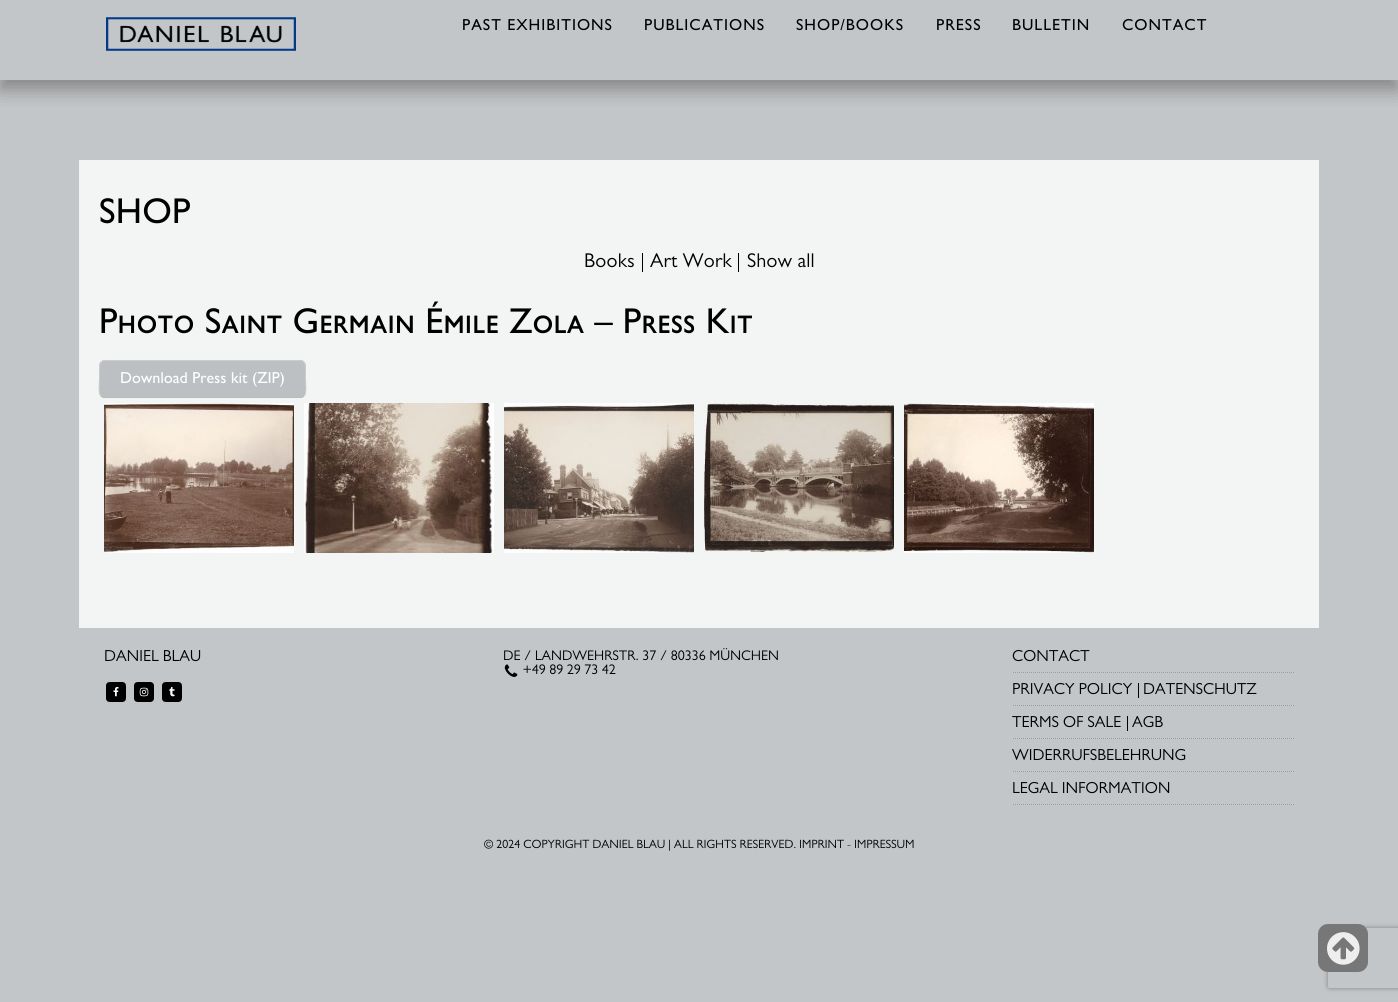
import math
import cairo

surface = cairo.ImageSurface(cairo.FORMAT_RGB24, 1398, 1002)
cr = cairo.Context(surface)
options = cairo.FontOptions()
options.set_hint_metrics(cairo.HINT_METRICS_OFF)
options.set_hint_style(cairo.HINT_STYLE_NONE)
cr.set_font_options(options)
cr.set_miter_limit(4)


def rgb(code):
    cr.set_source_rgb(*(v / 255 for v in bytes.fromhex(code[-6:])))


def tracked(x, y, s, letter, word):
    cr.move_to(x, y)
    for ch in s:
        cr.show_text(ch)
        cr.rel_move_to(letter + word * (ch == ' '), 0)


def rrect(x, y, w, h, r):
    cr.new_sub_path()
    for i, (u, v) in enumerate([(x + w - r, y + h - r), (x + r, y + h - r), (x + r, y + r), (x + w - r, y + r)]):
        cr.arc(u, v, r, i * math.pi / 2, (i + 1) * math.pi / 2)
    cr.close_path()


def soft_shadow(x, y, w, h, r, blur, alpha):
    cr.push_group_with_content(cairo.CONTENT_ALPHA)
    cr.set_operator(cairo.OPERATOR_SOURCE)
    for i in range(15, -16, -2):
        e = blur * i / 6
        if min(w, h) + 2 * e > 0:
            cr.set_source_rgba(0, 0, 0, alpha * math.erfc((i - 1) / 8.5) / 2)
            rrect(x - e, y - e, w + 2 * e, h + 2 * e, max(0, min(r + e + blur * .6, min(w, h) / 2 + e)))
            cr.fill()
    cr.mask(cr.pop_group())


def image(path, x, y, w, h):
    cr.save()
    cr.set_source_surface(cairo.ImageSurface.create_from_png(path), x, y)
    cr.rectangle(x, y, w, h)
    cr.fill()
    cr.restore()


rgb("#c3c6c8")
cr.paint()
cr.save()
cr.rectangle(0, 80, 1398, 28)
cr.clip()
rgb("#888888")
soft_shadow(0, 10, 1398, 80, 0, 9, 1)
cr.restore()
image("img/1.png", 106, 17, 190, 34)
rgb("#f3f4f4")
cr.rectangle(79, 160, 1240, 468)
cr.fill()
image("img/2.png", 585, 253, 49, 15)
rgb("#000000")
cr.rectangle(642, 253, 1, 19)
cr.fill()
image("img/3.png", 650, 253, 82, 15)
cr.rectangle(738, 253, 1, 19)
cr.fill()
image("img/4.png", 747, 253, 67, 15)
rgb("#bcc0c2")
rrect(99, 360, 207, 38, 6)
cr.fill()
cr.new_path()
cr.move_to(304, 396)
cr.curve_to(303, 397, 301.5, 397.5, 300, 397.5)
cr.line_to(105, 397.5)
cr.curve_to(103.5, 397.5, 102, 397, 101, 396)
rgb("#bbbbbb")
cr.set_line_width(1)
cr.stroke()
cr.new_path()
cr.move_to(101, 396)
cr.curve_to(98, 393, 99.5, 383, 99.5, 379)
cr.line_to(99.5, 370.5)
cr.curve_to(99.5, 366.5, 99.5, 360.5, 105, 360.5)
cr.line_to(300, 360.5)
cr.curve_to(305.5, 360.5, 305.5, 366.5, 305.5, 370.5)
cr.line_to(305.5, 379)
cr.curve_to(305.5, 383, 307, 393, 304, 396)
rgb("#cccccc")
cr.stroke()
image("img/5.png", 121, 372, 163, 15)
image("img/6.png", 104, 403, 190, 150)
image("img/7.png", 304, 403, 190, 150)
image("img/8.png", 504, 403, 190, 150)
image("img/9.png", 704, 403, 190, 150)
image("img/10.png", 904, 403, 190, 150)
image("img/11.png", 105, 650, 96, 12)
image("img/12.png", 106, 682, 20, 20)
image("img/13.png", 134, 682, 20, 20)
image("img/14.png", 162, 682, 20, 20)
image("img/15.png", 504, 648, 274, 13)
image("img/16.png", 504, 664, 14, 13)
image("img/17.png", 523, 664, 93, 11)
image("img/18.png", 1012, 649, 78, 13)
rgb("#999999")
cr.rectangle(1012, 672, 282, 1)
cr.fill()
cr.new_path()
cr.move_to(1012, 672.5)
cr.line_to(1294, 672.5)
rgb("#cccccc")
cr.set_dash([1, 1])
cr.stroke()
image("img/19.png", 1013, 682, 120, 13)
rgb("#000000")
cr.rectangle(1138, 683, 1, 15)
cr.fill()
image("img/20.png", 1144, 682, 113, 13)
rgb("#999999")
cr.rectangle(1012, 705, 282, 1)
cr.fill()
cr.new_path()
cr.move_to(1012, 705.5)
cr.line_to(1294, 705.5)
rgb("#cccccc")
cr.stroke()
image("img/21.png", 1012, 715, 109, 13)
rgb("#000000")
cr.rectangle(1127, 716, 1, 15)
cr.fill()
image("img/22.png", 1132, 715, 31, 13)
rgb("#999999")
cr.rectangle(1012, 738, 282, 1)
cr.fill()
cr.new_path()
cr.move_to(1012, 738.5)
cr.line_to(1294, 738.5)
rgb("#cccccc")
cr.stroke()
image("img/23.png", 1012, 748, 174, 13)
rgb("#999999")
cr.rectangle(1012, 771, 282, 1)
cr.fill()
cr.new_path()
cr.move_to(1012, 771.5)
cr.line_to(1294, 771.5)
rgb("#cccccc")
cr.stroke()
image("img/24.png", 1013, 781, 157, 13)
rgb("#999999")
cr.rectangle(1012, 804, 282, 1)
cr.fill()
cr.new_path()
cr.move_to(1012, 804.5)
cr.line_to(1294, 804.5)
rgb("#cccccc")
cr.stroke()
image("img/25.png", 484, 839, 312, 12)
image("img/26.png", 800, 839, 44, 9)
rgb("#000000")
cr.new_path()
cr.move_to(850.5, 845)
cr.line_to(850.5, 845.5)
cr.line_to(847.5, 845.5)
cr.line_to(847.5, 845)
cr.close_path()
cr.fill()
image("img/27.png", 855, 839, 59, 10)
cr.save()
cr.set_fill_rule(cairo.FILL_RULE_EVEN_ODD)
cr.new_path()
cr.move_to(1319, 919)
cr.line_to(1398, 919)
cr.line_to(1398, 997)
cr.line_to(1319, 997)
cr.close_path()
cr.move_to(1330, 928)
cr.line_to(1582, 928)
cr.curve_to(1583, 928, 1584, 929, 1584, 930)
cr.line_to(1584, 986)
cr.curve_to(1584, 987, 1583, 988, 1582, 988)
cr.line_to(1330, 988)
cr.curve_to(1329, 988, 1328, 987, 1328, 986)
cr.line_to(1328, 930)
cr.curve_to(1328, 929, 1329, 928, 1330, 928)
cr.close_path()
cr.clip()
rgb("#808080")
soft_shadow(1328, 928, 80, 60, 2, 2.5, 1)
cr.restore()
rgb("#777777")
rrect(1318, 924, 50, 48, 10)
cr.fill()
image("img/28.png", 1327, 932, 33, 33)
cr.select_font_face("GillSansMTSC")
cr.set_font_size(16)
rgb("#000000")
for x, y, s in [
    (462, 30, "PAST EXHIBITIONS"),
    (644, 30, "PUBLICATIONS"),
    (796, 30, "SHOP/BOOKS"),
    (936, 30, "PRESS"),
    (1012, 30, "BULLETIN"),
    (1122, 30, "CONTACT"),
]:
    tracked(x, y, s, 1, 0)
cr.set_font_size(36)
tracked(99, 223, "SHOP", 0.2, 0)
tracked(99, 333, "Photo Saint Germain Émile Zola – Press Kit", 0.2, 0)
surface.write_to_png("page.png")
